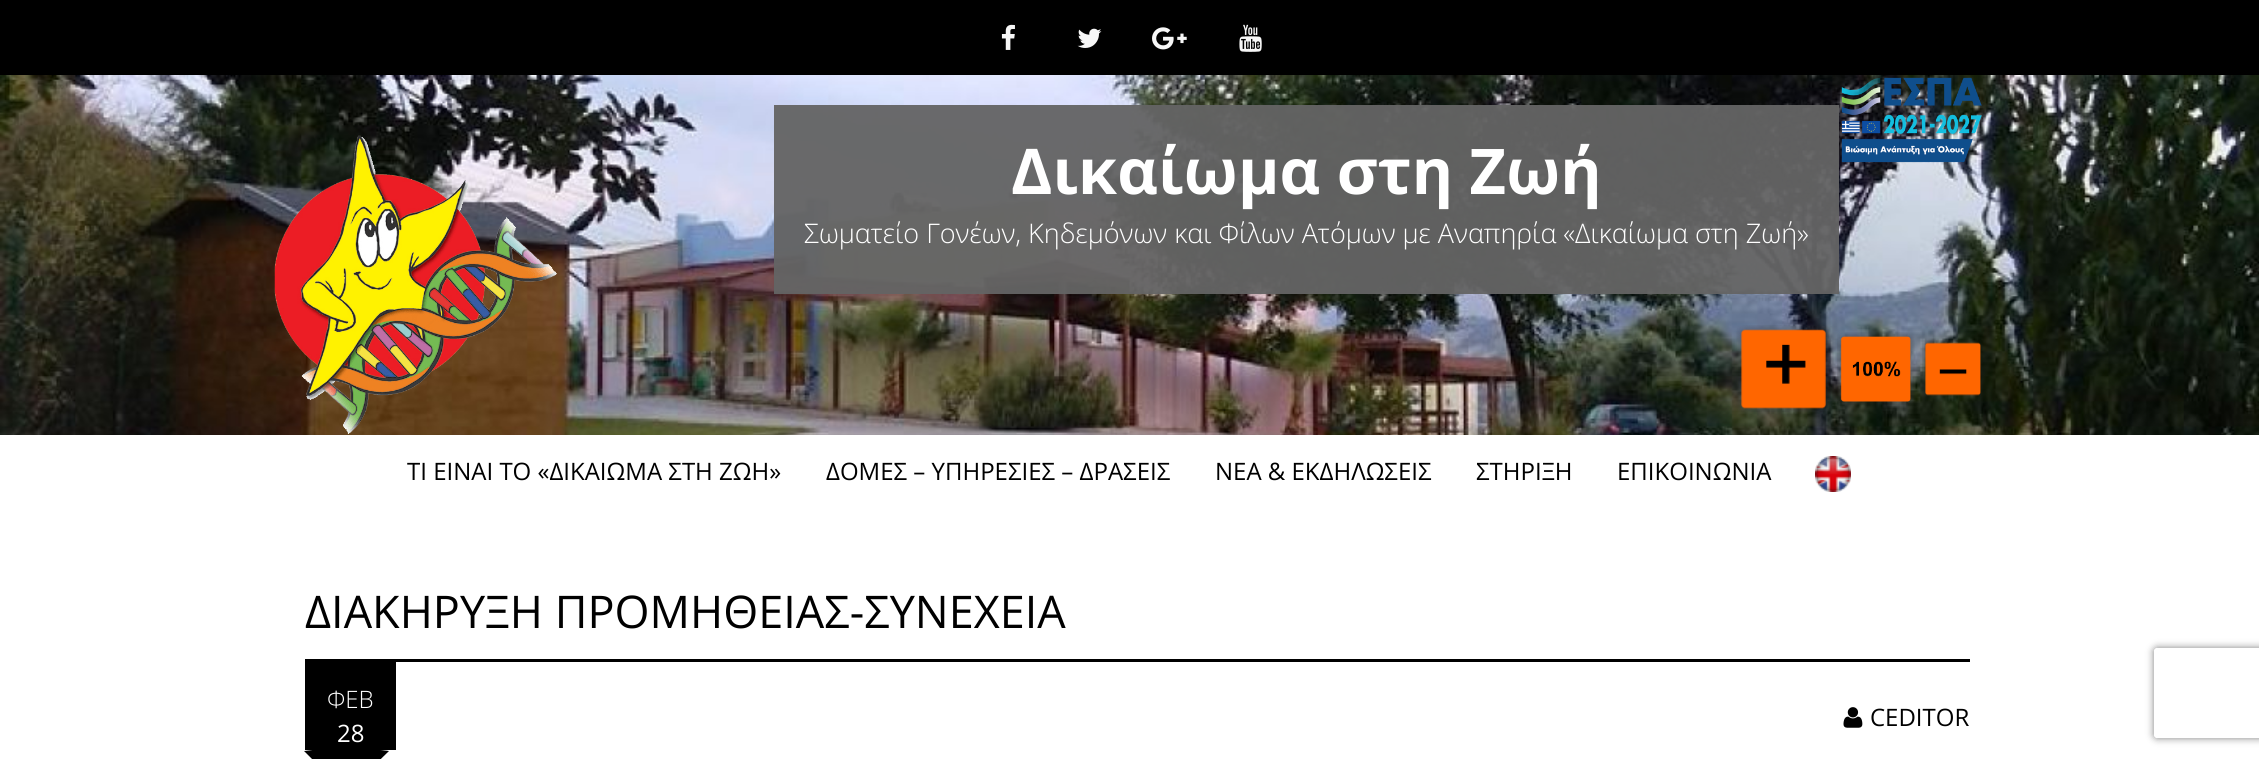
import math
import cairo

surface = cairo.ImageSurface(cairo.FORMAT_RGB24, 2259, 759)
cr = cairo.Context(surface)
options = cairo.FontOptions()
options.set_hint_metrics(cairo.HINT_METRICS_OFF)
options.set_hint_style(cairo.HINT_STYLE_NONE)
cr.set_font_options(options)
cr.set_miter_limit(4)


def rgb(code):
    cr.set_source_rgb(*(v / 255 for v in bytes.fromhex(code[-6:])))


def rrect(x, y, w, h, r):
    cr.new_sub_path()
    for i, (u, v) in enumerate([(x + w - r, y + h - r), (x + r, y + h - r), (x + r, y + r), (x + w - r, y + r)]):
        cr.arc(u, v, r, i * math.pi / 2, (i + 1) * math.pi / 2)
    cr.close_path()


def soft_shadow(x, y, w, h, r, blur, alpha):
    cr.push_group_with_content(cairo.CONTENT_ALPHA)
    cr.set_operator(cairo.OPERATOR_SOURCE)
    for i in range(15, -16, -2):
        e = blur * i / 6
        if min(w, h) + 2 * e > 0:
            cr.set_source_rgba(0, 0, 0, alpha * math.erfc((i - 1) / 8.5) / 2)
            rrect(x - e, y - e, w + 2 * e, h + 2 * e, max(0, min(r + e + blur * .6, min(w, h) / 2 + e)))
            cr.fill()
    cr.mask(cr.pop_group())


def image(path, x, y, w, h):
    cr.save()
    cr.set_source_surface(cairo.ImageSurface.create_from_png(path), x, y)
    cr.rectangle(x, y, w, h)
    cr.fill()
    cr.restore()


rgb("#ffffff")
cr.paint()
rgb("#000000")
cr.rectangle(0, 0, 2259, 75)
cr.fill()
image("img/1.png", 1001, 24, 14, 26)
image("img/2.png", 1077, 28, 25, 20)
image("img/3.png", 1152, 27, 35, 23)
image("img/4.png", 1239, 24, 23, 28)
image("img/5.png", 0, 75, 2259, 360)
image("img/6.png", 1841, 77, 141, 86)
image("img/7.png", 274, 135, 283, 299)
cr.set_source_rgba(0.392, 0.392, 0.392, 0.95)
cr.rectangle(774, 105, 1065, 189)
cr.fill()
image("img/8.png", 1736, 325, 95, 87)
image("img/9.png", 1837, 332, 78, 73)
image("img/10.png", 1922, 340, 59, 56)
image("img/11.png", 1815, 456, 36, 36)
rgb("#000000")
cr.rectangle(305, 659, 1665, 3)
cr.fill()
cr.rectangle(305, 662, 91, 88)
cr.fill()
cr.new_path()
cr.move_to(389, 751)
cr.line_to(346, 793)
cr.line_to(346, 746)
cr.close_path()
cr.fill()
cr.new_path()
cr.move_to(346, 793)
cr.line_to(304, 751)
cr.line_to(346, 746)
cr.close_path()
cr.fill()
image("img/12.png", 1843, 707, 20, 21)
cr.save()
cr.set_fill_rule(cairo.FILL_RULE_EVEN_ODD)
cr.new_path()
cr.move_to(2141, 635)
cr.line_to(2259, 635)
cr.line_to(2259, 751)
cr.line_to(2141, 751)
cr.close_path()
cr.move_to(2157, 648)
cr.line_to(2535, 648)
cr.curve_to(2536.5, 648, 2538, 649.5, 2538, 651)
cr.line_to(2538, 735)
cr.curve_to(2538, 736.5, 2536.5, 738, 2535, 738)
cr.line_to(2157, 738)
cr.curve_to(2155.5, 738, 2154, 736.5, 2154, 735)
cr.line_to(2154, 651)
cr.curve_to(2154, 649.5, 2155.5, 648, 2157, 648)
cr.close_path()
cr.clip()
rgb("#808080")
soft_shadow(2154, 648, 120, 90, 3, 4, 1)
cr.restore()
cr.select_font_face("Open Sans", cairo.FONT_SLANT_NORMAL, cairo.FONT_WEIGHT_BOLD)
cr.set_font_size(63)
rgb("#ffffff")
cr.move_to(1011, 194)
cr.show_text("Δικαίωμα στη Ζωή")
cr.select_font_face("Open Sans Light")
cr.set_font_size(27)
cr.move_to(804, 243)
cr.show_text("Σωματείο Γονέων, Κηδεμόνων και Φίλων Ατόμων με Αναπηρία «Δικαίωμα στη Ζωή»")
cr.select_font_face("Open Sans")
cr.set_font_size(24)
rgb("#000000")
for x, y, s in [
    (407, 480, "ΤΙ ΕΙΝΑΙ ΤΟ «ΔΙΚΑΙΩΜΑ ΣΤΗ ΖΩΗ»"),
    (826, 480, "ΔΟΜΕΣ – ΥΠΗΡΕΣΙΕΣ – ΔΡΑΣΕΙΣ"),
    (1215, 480, "ΝΕΑ & ΕΚΔΗΛΩΣΕΙΣ"),
    (1476, 480, "ΣΤΗΡΙΞΗ"),
    (1617, 480, "ΕΠΙΚΟΙΝΩΝΙΑ"),
]:
    cr.move_to(x, y)
    cr.show_text(s)
cr.set_font_size(45)
cr.move_to(305, 628)
cr.show_text("ΔΙΑΚΗΡΥΞΗ ΠΡΟΜΗΘΕΙΑΣ-ΣΥΝΕΧΕΙΑ")
cr.select_font_face("Open Sans Light")
cr.set_font_size(24)
rgb("#ffffff")
cr.move_to(327, 708)
cr.show_text("ΦΕΒ")
cr.select_font_face("Open Sans")
cr.move_to(337, 742)
cr.show_text("28")
rgb("#000000")
cr.move_to(1870, 726)
cr.show_text("CEDITOR")
surface.write_to_png("page.png")
